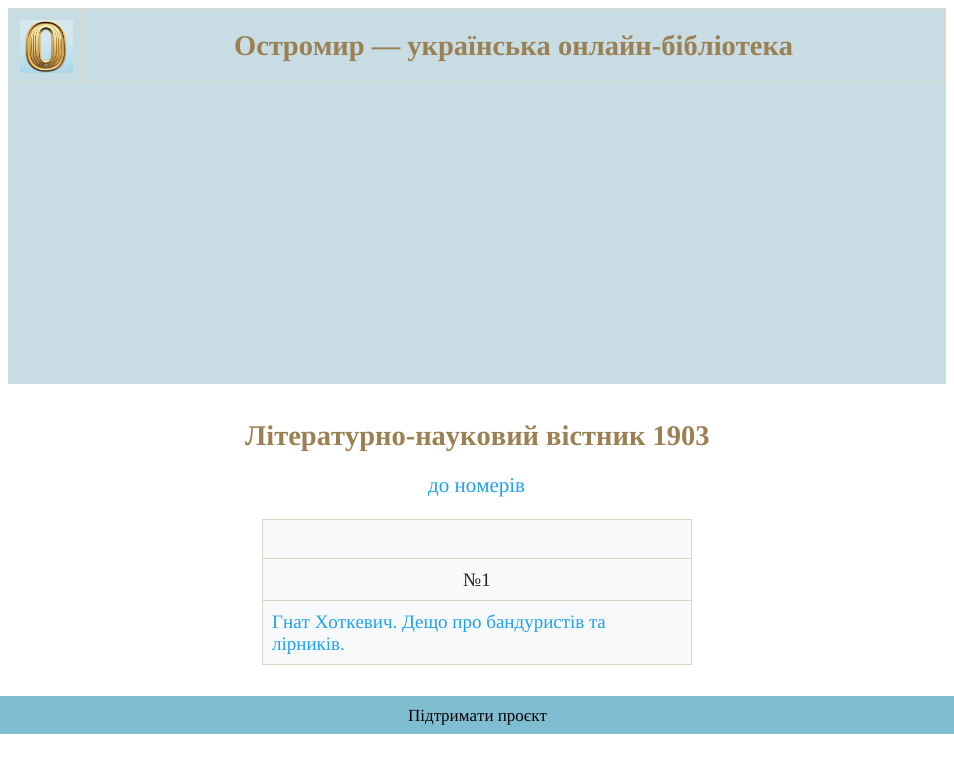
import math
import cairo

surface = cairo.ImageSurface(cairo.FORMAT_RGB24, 954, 779)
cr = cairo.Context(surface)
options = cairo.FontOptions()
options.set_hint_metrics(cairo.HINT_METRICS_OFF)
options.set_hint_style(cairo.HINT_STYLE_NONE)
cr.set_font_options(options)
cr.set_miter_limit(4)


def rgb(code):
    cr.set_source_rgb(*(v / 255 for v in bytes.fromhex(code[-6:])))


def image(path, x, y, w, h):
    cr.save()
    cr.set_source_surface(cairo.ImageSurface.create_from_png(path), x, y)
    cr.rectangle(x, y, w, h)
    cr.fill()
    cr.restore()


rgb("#ffffff")
cr.paint()
for x, y, w, h, color in [
    (8, 8, 938, 376, "#c7dde3"),
    (9, 9, 936, 1, "#d9d6c4"),
    (944, 9, 1, 74, "#d9d6c4"),
    (9, 82, 936, 1, "#d9d6c4"),
    (9, 9, 1, 74, "#d9d6c4"),
]:
    rgb(color)
    cr.rectangle(x, y, w, h)
    cr.fill()
image("img/1.png", 20, 20, 53, 53)
for x, y, w, h, color in [
    (82, 9, 1, 74, "#d9d6c4"),
    (263, 520, 428, 144, "#f8f9fa"),
    (262, 519, 430, 1, "#d9d6c4"),
    (691, 519, 1, 146, "#d9d6c4"),
    (262, 664, 430, 1, "#d9d6c4"),
    (262, 519, 1, 146, "#d9d6c4"),
    (262, 558, 430, 1, "#d9d6c4"),
    (262, 600, 430, 1, "#d9d6c4"),
    (0, 696, 954, 38, "#7ebed0"),
]:
    rgb(color)
    cr.rectangle(x, y, w, h)
    cr.fill()
cr.select_font_face("Liberation Serif", cairo.FONT_SLANT_NORMAL, cairo.FONT_WEIGHT_BOLD)
cr.set_font_size(28.5)
rgb("#9b8053")
cr.move_to(234, 55)
cr.show_text("Остромир — українська онлайн-бібліотека")
cr.move_to(245, 445)
cr.show_text("Літературно-науковий вістник 1903")
cr.select_font_face("Liberation Serif")
cr.set_font_size(21)
rgb("#1da1f2")
cr.move_to(428, 492)
cr.show_text("до номерів")
cr.set_font_size(19)
rgb("#222222")
cr.move_to(463, 586)
cr.show_text("№1")
rgb("#1da1f2")
cr.move_to(272, 628)
cr.show_text("Гнат Хоткевич. Дещо про бандуристів та")
cr.move_to(272, 650)
cr.show_text("лірників.")
cr.set_font_size(17)
rgb("#000000")
cr.move_to(408, 721)
cr.show_text("Підтримати проєкт")
surface.write_to_png("page.png")
